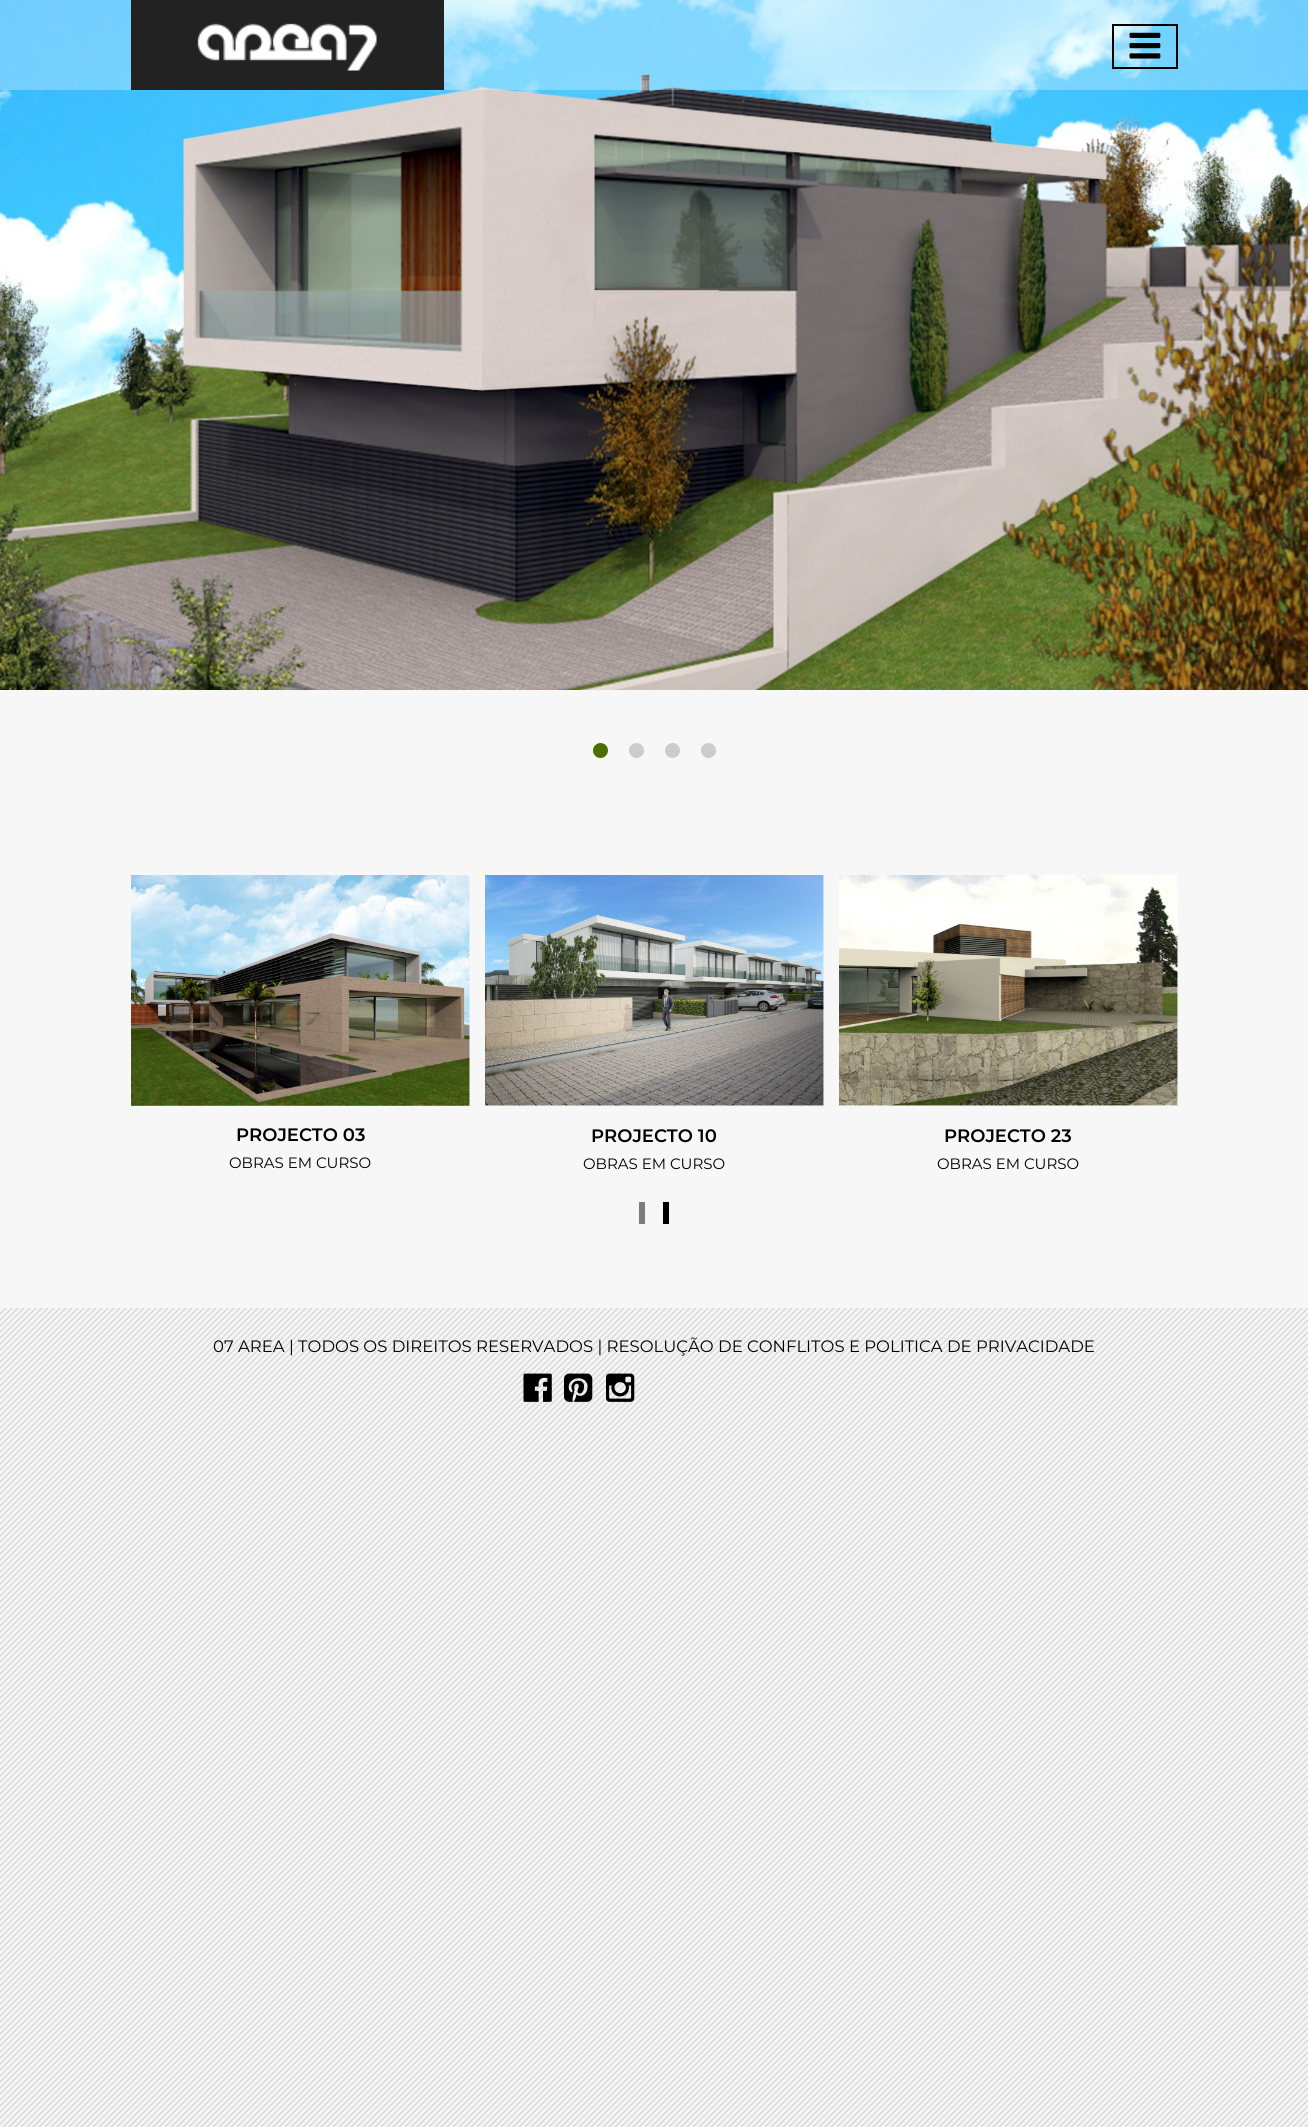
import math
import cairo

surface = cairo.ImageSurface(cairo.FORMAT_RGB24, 1308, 2127)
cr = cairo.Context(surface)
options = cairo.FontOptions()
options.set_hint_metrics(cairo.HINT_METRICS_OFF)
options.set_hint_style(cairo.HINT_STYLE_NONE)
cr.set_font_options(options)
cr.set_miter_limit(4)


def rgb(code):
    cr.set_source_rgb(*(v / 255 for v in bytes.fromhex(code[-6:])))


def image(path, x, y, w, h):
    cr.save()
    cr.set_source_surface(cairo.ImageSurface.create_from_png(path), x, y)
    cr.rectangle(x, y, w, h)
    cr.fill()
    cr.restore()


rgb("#f7f7f7")
cr.paint()
image("img/1.png", 0, 1308, 1308, 819)
image("img/4.png", 0, 0, 1308, 690)
cr.set_source_rgba(1, 1, 1, 0.3)
cr.rectangle(0, 0, 1308, 90)
cr.fill()
rgb("#222222")
cr.rectangle(131, 0, 313, 90)
cr.fill()
image("img/2.png", 197, 23, 180, 48)
cr.rectangle(1113, 25, 64, 43)
rgb("#000000")
cr.stroke()
image("img/3.png", 1129, 32, 32, 27)
rgb("#4a6f00")
cr.arc(600.5, 750.5, 7.5, 0, 2 * math.pi)
cr.fill()
rgb("#cccccc")
cr.arc(636.5, 750.5, 7.5, 0, 2 * math.pi)
cr.fill()
cr.arc(672.5, 750.5, 7.5, 0, 2 * math.pi)
cr.fill()
cr.arc(708.5, 750.5, 7.5, 0, 2 * math.pi)
cr.fill()
image("img/5.png", 131, 875, 339, 231)
image("img/6.png", 485, 875, 339, 231)
image("img/7.png", 839, 875, 339, 231)
rgb("#7c7c7c")
cr.rectangle(639, 1202, 6, 22)
cr.fill()
rgb("#000000")
cr.rectangle(663, 1202, 6, 22)
cr.fill()
image("img/8.png", 523, 1373, 29, 29)
image("img/9.png", 564, 1373, 29, 29)
image("img/10.png", 606, 1373, 29, 29)
cr.select_font_face("Montserrat SemiBold")
cr.set_font_size(18)
cr.move_to(236, 1141)
cr.show_text("PROJECTO 03")
cr.select_font_face("Montserrat")
cr.set_font_size(15)
cr.move_to(229, 1168)
cr.show_text("OBRAS EM CURSO")
cr.select_font_face("Montserrat SemiBold")
cr.set_font_size(18)
cr.move_to(591, 1142)
cr.show_text("PROJECTO 10")
cr.select_font_face("Montserrat")
cr.set_font_size(15)
cr.move_to(583, 1169)
cr.show_text("OBRAS EM CURSO")
cr.select_font_face("Montserrat SemiBold")
cr.set_font_size(18)
cr.move_to(944, 1142)
cr.show_text("PROJECTO 23")
cr.select_font_face("Montserrat")
cr.set_font_size(15)
cr.move_to(937, 1169)
cr.show_text("OBRAS EM CURSO")
cr.set_font_size(16.5)
cr.move_to(213, 1352)
cr.show_text("07 AREA | TODOS OS DIREITOS RESERVADOS | RESOLUÇÃO DE CONFLITOS E POLITICA DE PRIVACIDADE")
surface.write_to_png("page.png")
